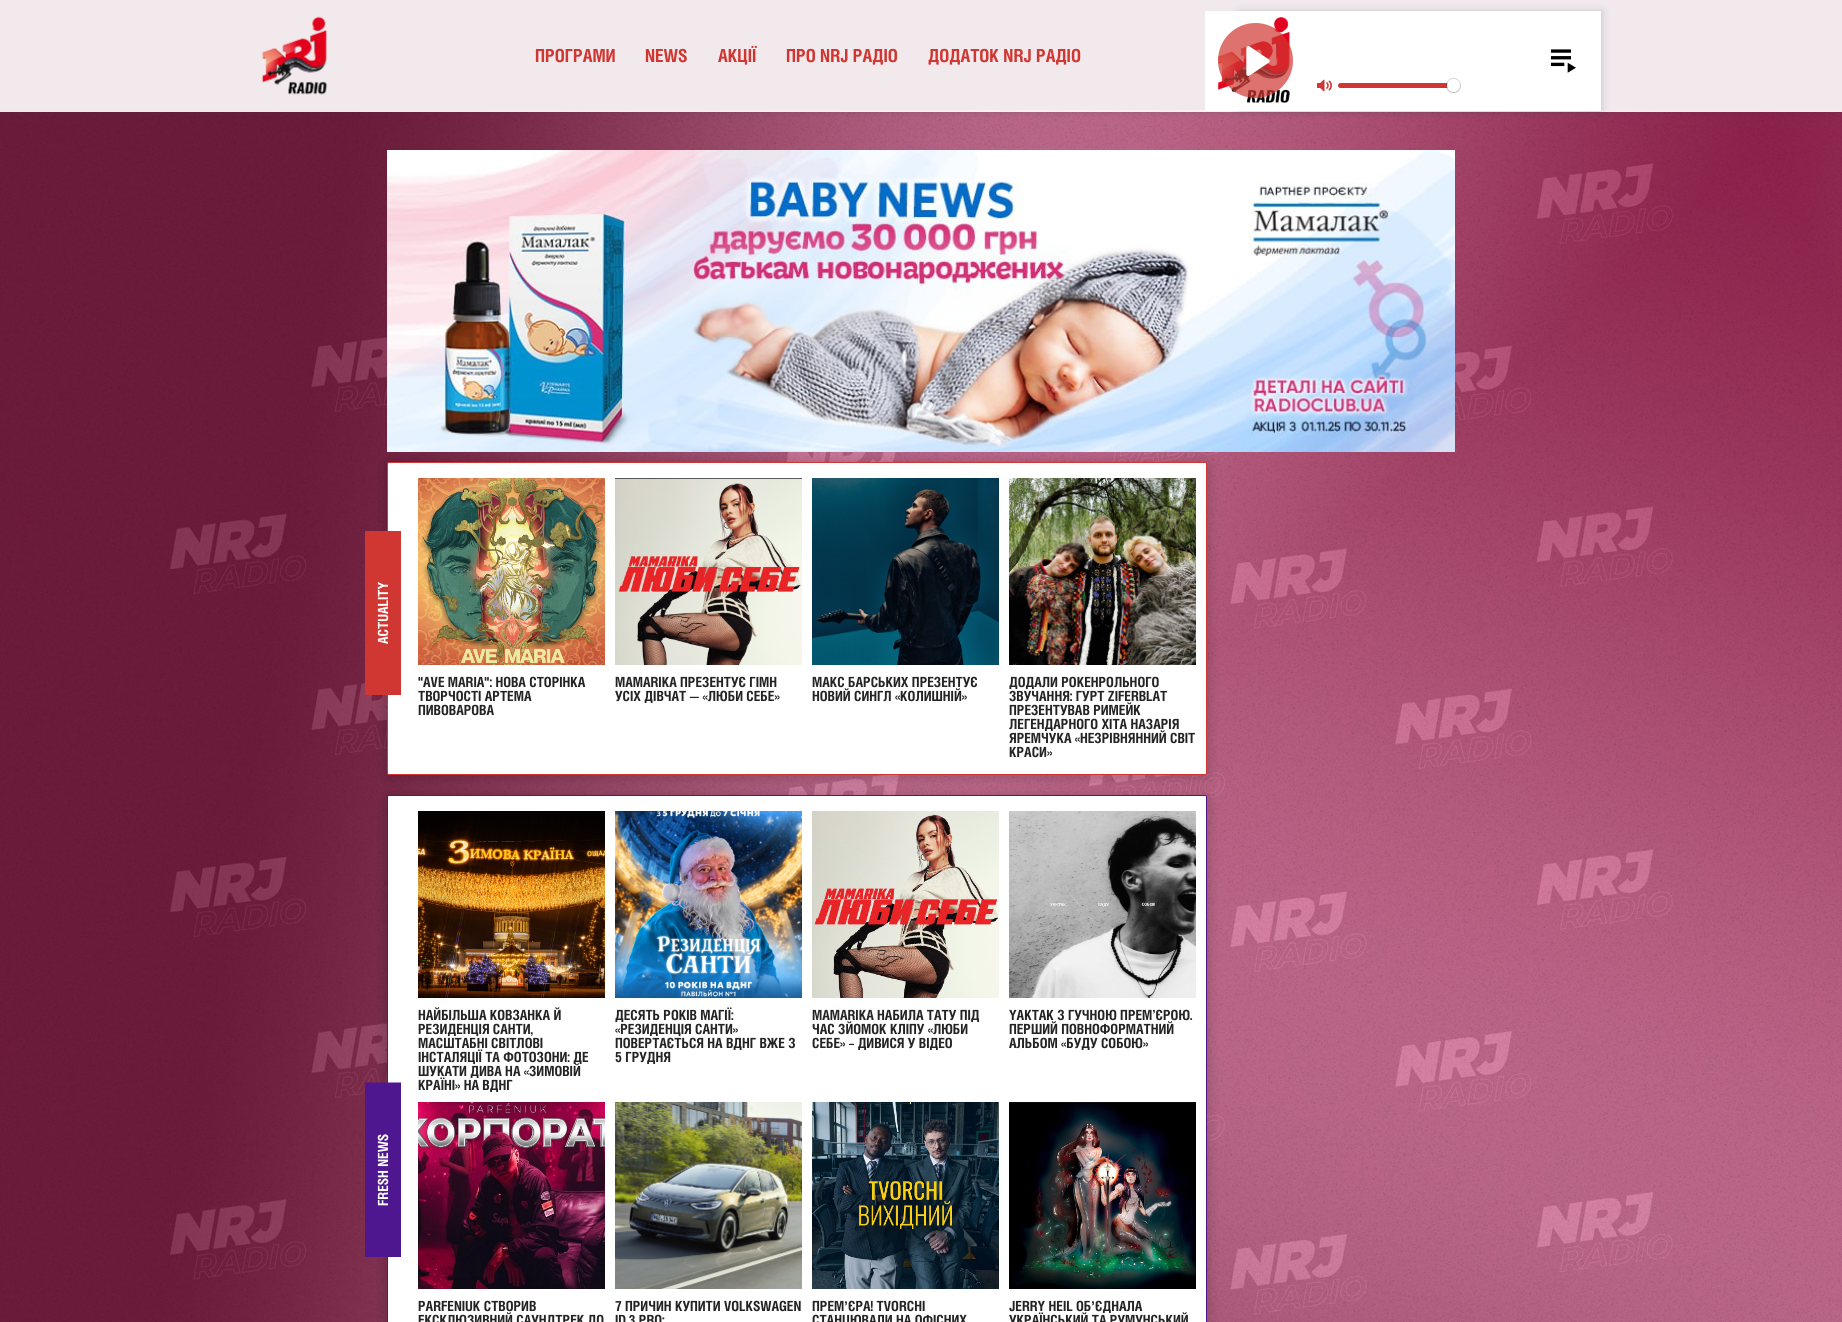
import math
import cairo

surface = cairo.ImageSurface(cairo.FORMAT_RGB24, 1842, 1322)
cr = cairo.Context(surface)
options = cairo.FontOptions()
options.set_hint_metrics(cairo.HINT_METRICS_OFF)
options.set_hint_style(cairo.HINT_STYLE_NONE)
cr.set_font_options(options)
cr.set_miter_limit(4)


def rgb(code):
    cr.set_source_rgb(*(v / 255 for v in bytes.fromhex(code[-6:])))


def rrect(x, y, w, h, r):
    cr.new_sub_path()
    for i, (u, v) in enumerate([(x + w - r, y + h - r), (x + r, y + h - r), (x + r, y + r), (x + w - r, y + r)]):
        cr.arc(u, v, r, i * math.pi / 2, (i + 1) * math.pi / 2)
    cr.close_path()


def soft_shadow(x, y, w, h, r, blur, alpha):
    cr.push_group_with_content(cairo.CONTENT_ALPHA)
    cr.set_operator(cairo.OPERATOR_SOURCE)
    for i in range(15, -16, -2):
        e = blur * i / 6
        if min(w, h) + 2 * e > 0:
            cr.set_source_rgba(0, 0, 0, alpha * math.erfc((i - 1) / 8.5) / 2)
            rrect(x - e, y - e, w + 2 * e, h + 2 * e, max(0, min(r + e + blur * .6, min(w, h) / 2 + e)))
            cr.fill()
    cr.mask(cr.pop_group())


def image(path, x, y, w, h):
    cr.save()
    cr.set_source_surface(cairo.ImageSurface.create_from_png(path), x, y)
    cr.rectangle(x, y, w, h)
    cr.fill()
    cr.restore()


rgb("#712140")
cr.paint()
image("img/1.png", 0, 110, 1842, 1212)
cr.save()
cr.rectangle(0, 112, 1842, 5)
cr.clip()
rgb("#223c50")
soft_shadow(1, 0, 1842, 112, 0, 4, 0.2)
cr.restore()
cr.set_source_rgba(1, 1, 1, 0.9)
cr.rectangle(0, 0, 1842, 112)
cr.fill()
image("img/2.png", 261, 16, 67, 79)
rgb("#223c50")
soft_shadow(1239, 11, 363, 100, 0, 4, 0.2)
rgb("#ffffff")
cr.rectangle(1290, 11, 311, 100)
cr.fill()
image("img/3.png", 1205, 11, 85, 100)
cr.set_source_rgba(0.816, 0.216, 0.196, 0.7)
cr.arc(1255.5, 60.5, 37.5, 0, 2 * math.pi)
cr.fill()
image("img/4.png", 1246, 46, 24, 30)
image("img/5.png", 1317, 79, 15, 13)
rgb("#d03732")
rrect(1338, 83, 122, 5, 2.5)
cr.fill()
cr.arc(1453.5, 85.5, 7, 0, 2 * math.pi)
cr.set_source_rgba(0.137, 0.157, 0.184, 0.2)
cr.set_line_width(1)
cr.stroke()
rgb("#23282f")
soft_shadow(1447, 80, 13, 13, 6.5, 0.5, 0.15)
rgb("#ffffff")
cr.arc(1453.5, 85.5, 6.5, 0, 2 * math.pi)
cr.fill()
image("img/6.png", 1551, 49, 25, 24)
image("img/7.png", 387, 150, 1068, 302)
rgb("#000000")
soft_shadow(384, 461, 826, 319, 5, 5.5, 0.15)
rgb("#ffffff")
rrect(387.5, 462.5, 819, 312, 1.5)
cr.fill_preserve()
rgb("#d03732")
cr.stroke()
cr.rectangle(365, 531, 36, 164)
cr.fill()
image("img/8.png", 418, 478, 187, 187)
image("img/9.png", 615, 478, 187, 187)
image("img/10.png", 812, 478, 187, 187)
image("img/11.png", 1009, 478, 187, 187)
rgb("#000000")
soft_shadow(384, 794, 826, 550, 5, 5.5, 0.15)
rgb("#ffffff")
rrect(387.5, 795.5, 819, 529, 1.5)
cr.fill_preserve()
rgb("#4e168f")
cr.stroke()
cr.rectangle(366, 1083, 34, 173)
cr.fill()
cr.new_path()
cr.move_to(365.5, 1256.5)
cr.line_to(365.5, 1083)
cr.line_to(400.5, 1083)
cr.line_to(400.5, 1256.5)
cr.close_path()
cr.stroke()
image("img/12.png", 418, 811, 187, 187)
image("img/13.png", 615, 811, 187, 187)
image("img/14.png", 812, 811, 187, 187)
image("img/15.png", 1009, 811, 187, 187)
image("img/16.png", 418, 1102, 187, 187)
image("img/17.png", 615, 1102, 187, 187)
image("img/18.png", 812, 1102, 187, 187)
image("img/19.png", 1009, 1102, 187, 187)
cr.select_font_face("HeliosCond", cairo.FONT_SLANT_NORMAL, cairo.FONT_WEIGHT_BOLD)
cr.set_font_size(18)
rgb("#d03732")
for x, y, s in [
    (535, 62, "ПРОГРАМИ"),
    (645, 62, "NEWS"),
    (718, 62, "АКЦІЇ"),
    (786, 62, "ПРО NRJ РАДІО"),
    (928, 62, "ДОДАТОК NRJ РАДІО"),
]:
    cr.move_to(x, y)
    cr.show_text(s)
cr.set_font_size(14)
rgb("#ffffff")
cr.save()
cr.translate(388, 644)
cr.rotate(-90 * math.pi / 180)
cr.move_to(0, 0)
cr.show_text("ACTUALITY")
cr.restore()
rgb("#252425")
for x, y, s in [
    (418, 687, "\"AVE MARIA\": НОВА СТОРІНКА"),
    (418, 701, "ТВОРЧОСТІ АРТЕМА"),
    (418, 715, "ПИВОВАРОВА"),
    (615, 687, "MAMARIKA ПРЕЗЕНТУЄ ГІМН"),
    (615, 701, "УСІХ ДІВЧАТ — «ЛЮБИ СЕБЕ»"),
    (812, 687, "МАКС БАРСЬКИХ ПРЕЗЕНТУЄ"),
    (812, 701, "НОВИЙ СИНГЛ «КОЛИШНІЙ»"),
    (1009, 687, "ДОДАЛИ РОКЕНРОЛЬНОГО"),
    (1009, 701, "ЗВУЧАННЯ: ГУРТ ZIFERBLAT"),
    (1009, 715, "ПРЕЗЕНТУВАВ РИМЕЙК"),
    (1009, 729, "ЛЕГЕНДАРНОГО ХІТА НАЗАРІЯ"),
    (1009, 743, "ЯРЕМЧУКА «НЕЗРІВНЯННИЙ СВІТ"),
    (1009, 757, "КРАСИ»"),
]:
    cr.move_to(x, y)
    cr.show_text(s)
rgb("#ffffff")
cr.save()
cr.translate(388, 1206)
cr.rotate(-90 * math.pi / 180)
cr.move_to(0, 0)
cr.show_text("FRESH NEWS")
cr.restore()
rgb("#252425")
for x, y, s in [
    (418, 1020, "НАЙБІЛЬША КОВЗАНКА Й"),
    (418, 1034, "РЕЗИДЕНЦІЯ САНТИ,"),
    (418, 1048, "МАСШТАБНІ СВІТЛОВІ"),
    (418, 1062, "ІНСТАЛЯЦІЇ ТА ФОТОЗОНИ: ДЕ"),
    (418, 1076, "ШУКАТИ ДИВА НА «ЗИМОВІЙ"),
    (418, 1090, "КРАЇНІ» НА ВДНГ"),
    (615, 1020, "ДЕСЯТЬ РОКІВ МАГІЇ:"),
    (615, 1034, "«РЕЗИДЕНЦІЯ САНТИ»"),
    (615, 1048, "ПОВЕРТАЄТЬСЯ НА ВДНГ ВЖЕ З"),
    (615, 1062, "5 ГРУДНЯ"),
    (812, 1020, "MAMARIKA НАБИЛА ТАТУ ПІД"),
    (812, 1034, "ЧАС ЗЙОМОК КЛІПУ «ЛЮБИ"),
    (812, 1048, "СЕБЕ» – ДИВИСЯ У ВІДЕО"),
    (1009, 1020, "YAKTAK З ГУЧНОЮ ПРЕМ’ЄРОЮ."),
    (1009, 1034, "ПЕРШИЙ ПОВНОФОРМАТНИЙ"),
    (1009, 1048, "АЛЬБОМ «БУДУ СОБОЮ»"),
    (418, 1311, "PARFENIUK СТВОРИВ"),
    (418, 1325, "ЕКСКЛЮЗИВНИЙ САУНДТРЕК ДО"),
    (615, 1311, "7 ПРИЧИН КУПИТИ VOLKSWAGEN"),
    (615, 1325, "ID.3 PRO:"),
    (812, 1311, "ПРЕМ"),
]:
    cr.move_to(x, y)
    cr.show_text(s)
cr.select_font_face("Liberation Sans", cairo.FONT_SLANT_NORMAL, cairo.FONT_WEIGHT_BOLD)
cr.move_to(844, 1311)
cr.show_text("ʼ")
cr.select_font_face("HeliosCond", cairo.FONT_SLANT_NORMAL, cairo.FONT_WEIGHT_BOLD)
for x, y, s in [
    (848, 1311, "ЄРА! TVORCHI"),
    (812, 1325, "СТАНЦЮВАЛИ НА ОФІСНИХ"),
    (1009, 1311, "JERRY HEIL ОБ"),
]:
    cr.move_to(x, y)
    cr.show_text(s)
cr.select_font_face("Liberation Sans", cairo.FONT_SLANT_NORMAL, cairo.FONT_WEIGHT_BOLD)
cr.move_to(1091, 1311)
cr.show_text("ʼ")
cr.select_font_face("HeliosCond", cairo.FONT_SLANT_NORMAL, cairo.FONT_WEIGHT_BOLD)
cr.move_to(1095, 1311)
cr.show_text("ЄДНАЛА")
cr.move_to(1009, 1325)
cr.show_text("УКРАЇНСЬКИЙ ТА РУМУНСЬКИЙ")
surface.write_to_png("page.png")
